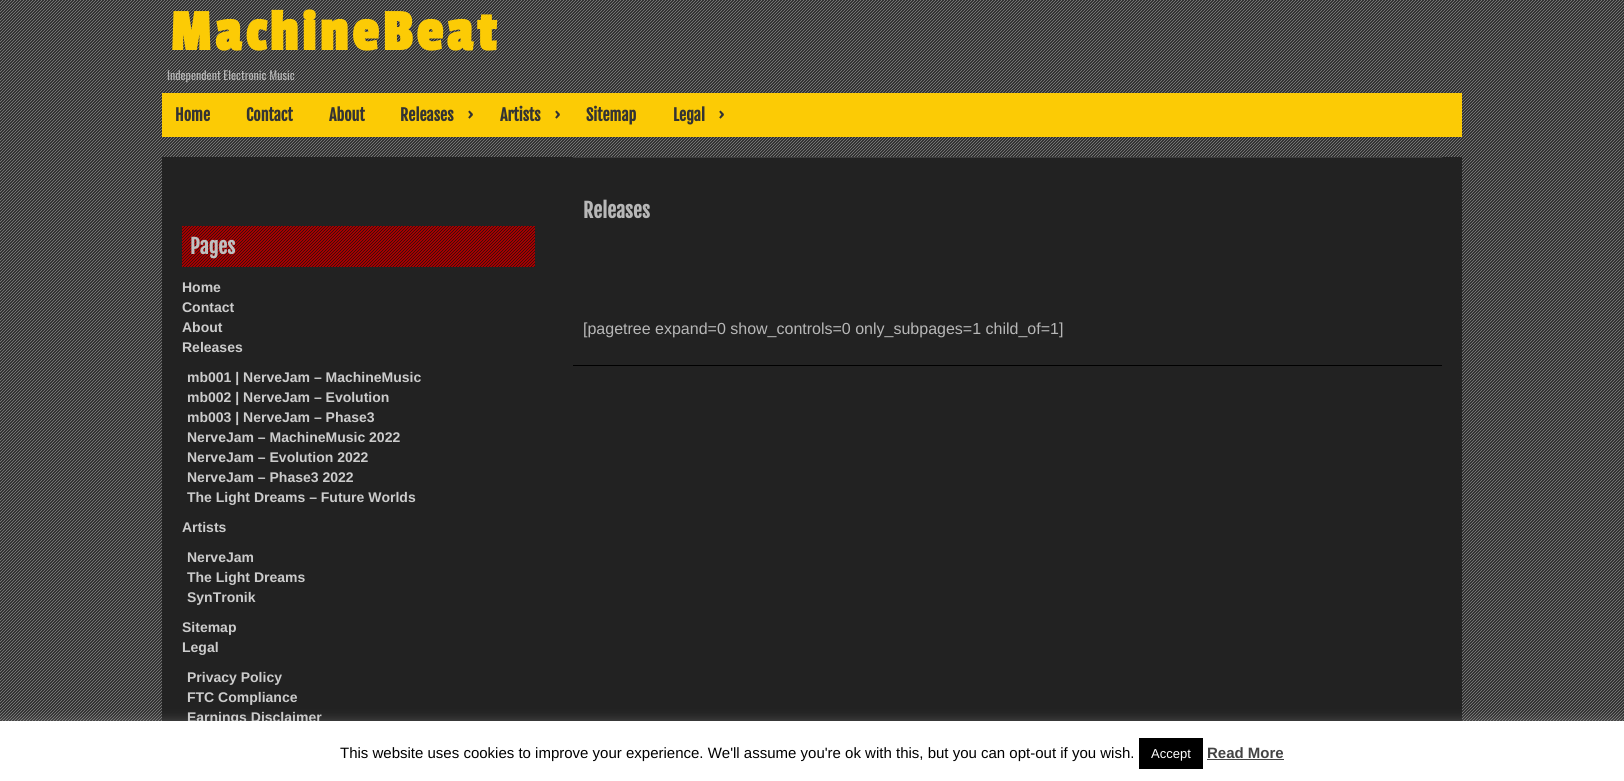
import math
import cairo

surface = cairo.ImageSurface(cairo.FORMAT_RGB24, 1624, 781)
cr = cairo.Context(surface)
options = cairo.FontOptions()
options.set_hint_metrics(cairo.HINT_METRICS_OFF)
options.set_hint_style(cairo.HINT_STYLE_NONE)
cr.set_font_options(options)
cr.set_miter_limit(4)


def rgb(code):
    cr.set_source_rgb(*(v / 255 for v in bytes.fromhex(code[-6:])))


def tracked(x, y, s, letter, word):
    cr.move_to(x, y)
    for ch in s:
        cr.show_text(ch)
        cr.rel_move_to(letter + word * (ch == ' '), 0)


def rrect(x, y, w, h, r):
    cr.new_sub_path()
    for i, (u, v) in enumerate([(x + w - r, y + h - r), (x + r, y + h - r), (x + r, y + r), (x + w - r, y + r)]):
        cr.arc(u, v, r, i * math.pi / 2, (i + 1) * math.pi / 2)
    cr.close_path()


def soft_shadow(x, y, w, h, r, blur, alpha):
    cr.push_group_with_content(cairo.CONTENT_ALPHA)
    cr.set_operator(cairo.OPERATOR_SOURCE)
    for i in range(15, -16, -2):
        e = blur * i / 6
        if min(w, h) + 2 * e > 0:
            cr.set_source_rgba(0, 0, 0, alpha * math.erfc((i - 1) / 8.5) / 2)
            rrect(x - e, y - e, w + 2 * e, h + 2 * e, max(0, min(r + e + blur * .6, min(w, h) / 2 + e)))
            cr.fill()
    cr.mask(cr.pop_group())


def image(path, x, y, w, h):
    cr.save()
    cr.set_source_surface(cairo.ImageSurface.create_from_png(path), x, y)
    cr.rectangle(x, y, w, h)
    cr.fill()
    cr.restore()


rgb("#333333")
cr.paint()
image("img/1.png", 0, 0, 1624, 721)
for x, y, w, h, color in [
    (162, 93, 1300, 44, "#fccb05"),
    (162, 157, 1300, 564, "#222222"),
    (182, 226, 353, 41, "#a50000"),
]:
    rgb(color)
    cr.rectangle(x, y, w, h)
    cr.fill()
image("img/2.png", 182, 226, 353, 41)
rgb("#3d3d3d")
cr.rectangle(573, 157, 869, 1)
cr.fill()
rgb("#000000")
cr.rectangle(573, 365, 869, 1)
cr.fill()
rgb("#acabab")
soft_shadow(0, 720, 1624, 60, 0, 5, 0.3)
cr.select_font_face("Passion One", cairo.FONT_SLANT_NORMAL, cairo.FONT_WEIGHT_BOLD)
cr.set_font_size(60)
rgb("#fccb05")
tracked(170, 50, "MachineBeat", 4, 0)
cr.select_font_face("Oswald")
cr.set_font_size(12)
rgb("#b7b7b7")
cr.move_to(167, 80)
cr.show_text("Independent Electronic Music")
cr.select_font_face("Fjalla One", cairo.FONT_SLANT_NORMAL, cairo.FONT_WEIGHT_BOLD)
cr.set_font_size(16)
rgb("#333333")
for x, y, s in [
    (175, 121, "Home"),
    (246, 121, "Contact"),
    (329, 121, "About"),
    (400, 121, "Releases"),
    (467, 121, "›"),
    (500, 121, "Artists"),
    (554, 121, "›"),
    (586, 121, "Sitemap"),
    (673, 121, "Legal"),
    (718, 121, "›"),
]:
    cr.move_to(x, y)
    cr.show_text(s)
cr.set_font_size(20)
rgb("#c0c0c0")
cr.move_to(190, 254)
cr.show_text("Pages")
cr.select_font_face("Liberation Sans", cairo.FONT_SLANT_NORMAL, cairo.FONT_WEIGHT_BOLD)
cr.set_font_size(14)
rgb("#cccccc")
for x, y, s in [
    (182, 292, "Home"),
    (182, 312, "Contact"),
    (182, 332, "About"),
    (182, 352, "Releases"),
    (187, 382, "mb001 | NerveJam – MachineMusic"),
    (187, 402, "mb002 | NerveJam – Evolution"),
    (187, 422, "mb003 | NerveJam – Phase3"),
    (187, 442, "NerveJam – MachineMusic 2022"),
    (187, 462, "NerveJam – Evolution 2022"),
    (187, 482, "NerveJam – Phase3 2022"),
    (187, 502, "The Light Dreams – Future Worlds"),
    (182, 532, "Artists"),
    (187, 562, "NerveJam"),
    (187, 582, "The Light Dreams"),
    (187, 602, "SynTronik"),
    (182, 632, "Sitemap"),
    (182, 652, "Legal"),
    (187, 682, "Privacy Policy"),
    (187, 702, "FTC Compliance"),
    (187, 722, "Earnings Disclaimer"),
]:
    cr.move_to(x, y)
    cr.show_text(s)
cr.select_font_face("Fjalla One", cairo.FONT_SLANT_NORMAL, cairo.FONT_WEIGHT_BOLD)
cr.set_font_size(20)
rgb("#b7b7b7")
cr.move_to(583, 218)
cr.show_text("Releases")
cr.select_font_face("Liberation Sans")
cr.set_font_size(16)
cr.move_to(583, 334)
cr.show_text("[pagetree expand=0 show_controls=0 only_subpages=1 child_of=1]")
rgb("#ffffff")
cr.rectangle(0, 721, 1624, 60)
cr.fill()
cr.set_font_size(15)
rgb("#000000")
cr.move_to(340, 758)
cr.show_text("This website uses cookies to improve your experience. We'll assume you're ok with this, but you can opt-out if you wish.")
cr.rectangle(1139, 738, 64, 31)
cr.fill()
cr.set_font_size(13)
rgb("#ffffff")
cr.move_to(1151, 758)
cr.show_text("Accept")
cr.select_font_face("Liberation Sans", cairo.FONT_SLANT_NORMAL, cairo.FONT_WEIGHT_BOLD)
cr.set_font_size(15)
rgb("#444444")
cr.move_to(1207, 758)
cr.show_text("Read More")
cr.rectangle(1207, 759, 77, 1)
cr.fill()
surface.write_to_png("page.png")
